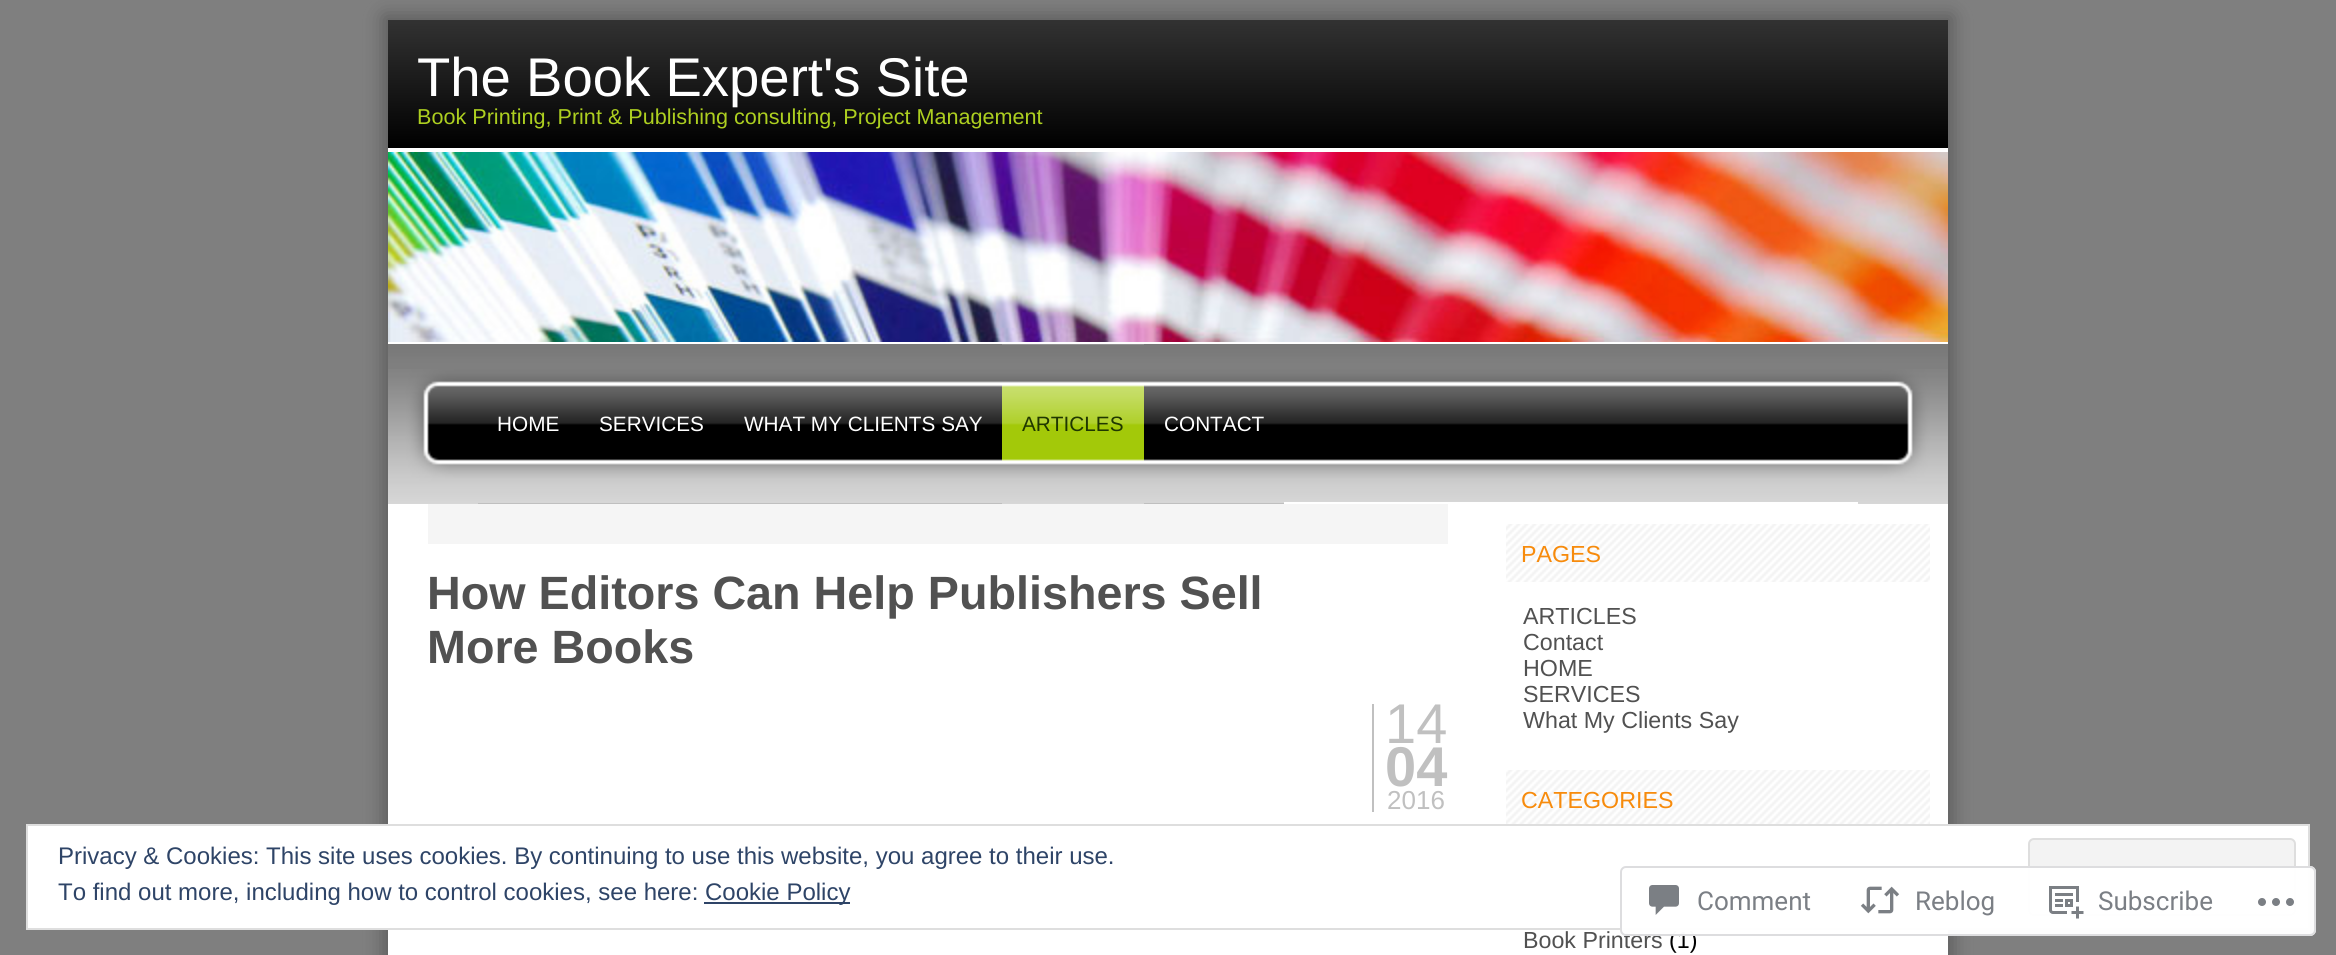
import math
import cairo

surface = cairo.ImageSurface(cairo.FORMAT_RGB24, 2336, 955)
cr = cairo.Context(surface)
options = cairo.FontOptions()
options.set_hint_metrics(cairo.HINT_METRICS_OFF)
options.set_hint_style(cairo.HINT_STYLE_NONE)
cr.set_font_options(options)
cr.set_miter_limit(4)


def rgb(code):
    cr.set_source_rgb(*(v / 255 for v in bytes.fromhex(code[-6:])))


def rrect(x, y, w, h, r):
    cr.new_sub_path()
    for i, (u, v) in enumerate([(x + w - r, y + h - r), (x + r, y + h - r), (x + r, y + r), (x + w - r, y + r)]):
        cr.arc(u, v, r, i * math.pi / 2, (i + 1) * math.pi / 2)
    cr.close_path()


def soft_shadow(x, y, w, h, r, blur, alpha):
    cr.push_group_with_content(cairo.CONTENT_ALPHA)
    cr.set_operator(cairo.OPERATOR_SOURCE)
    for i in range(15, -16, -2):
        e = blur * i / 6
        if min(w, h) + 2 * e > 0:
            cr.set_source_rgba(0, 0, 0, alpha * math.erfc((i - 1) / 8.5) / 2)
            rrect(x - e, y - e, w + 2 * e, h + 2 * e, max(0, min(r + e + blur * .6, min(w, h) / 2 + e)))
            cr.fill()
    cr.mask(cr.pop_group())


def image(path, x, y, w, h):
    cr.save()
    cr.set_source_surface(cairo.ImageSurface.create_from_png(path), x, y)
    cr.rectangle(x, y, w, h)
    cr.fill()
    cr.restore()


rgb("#7f7f7f")
cr.paint()
rgb("#5a5a5a")
soft_shadow(384, 16, 1568, 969, 0, 10, 1)
gradient = cairo.LinearGradient(1168, 20, 1168, 148)
gradient.add_color_stop_rgba(0, 0.196, 0.196, 0.196, 1)
gradient.add_color_stop_rgba(1, 0, 0, 0, 1)
cr.set_source(gradient)
cr.rectangle(388, 20, 1560, 128)
cr.fill()
rgb("#ffffff")
cr.rectangle(388, 148, 1560, 4)
cr.fill()
image("img/1.png", 388, 152, 1560, 190)
cr.rectangle(388, 502, 1560, 453)
cr.fill()
image("img/2.png", 388, 344, 1560, 158)
cr.rectangle(388, 342, 1560, 2)
cr.fill()
image("img/3.png", 388, 369, 90, 135)
image("img/4.png", 478, 502, 102, 2)
image("img/5.png", 580, 502, 144, 2)
image("img/6.png", 724, 502, 278, 2)
image("img/7.png", 1002, 344, 142, 160)
image("img/8.png", 1144, 502, 140, 2)
image("img/9.png", 1858, 369, 90, 135)
rgb("#f5f5f5")
cr.rectangle(428, 504, 1020, 40)
cr.fill()
rgb("#c0c0c0")
cr.rectangle(1372, 704, 2, 108)
cr.fill()
image("img/10.png", 1506, 524, 424, 58)
image("img/11.png", 1506, 770, 424, 54)
rgb("#ffffff")
cr.rectangle(27, 825, 2282, 104)
cr.fill_preserve()
rgb("#dedede")
cr.stroke()
rgb("#f3f3f3")
rrect(2029, 839, 266, 76, 5)
cr.fill_preserve()
rgb("#dedede")
cr.stroke()
rgb("#2e4467")
cr.rectangle(704, 902, 146, 2)
cr.fill()
cr.select_font_face("Liberation Sans")
cr.set_font_size(54.5)
rgb("#ffffff")
cr.move_to(417, 96)
cr.show_text("The Book Expert's Site")
cr.set_font_size(21.6)
rgb("#adcf20")
cr.move_to(417, 124)
cr.show_text("Book Printing, Print & Publishing consulting, Project Management")
cr.set_font_size(20.75)
rgb("#ffffff")
for x, y, s in [
    (497, 431, "HOME"),
    (599, 431, "SERVICES"),
    (744, 431, "WHAT MY CLIENTS SAY"),
]:
    cr.move_to(x, y)
    cr.show_text(s)
rgb("#1f3700")
cr.move_to(1022, 431)
cr.show_text("ARTICLES")
rgb("#ffffff")
cr.move_to(1164, 431)
cr.show_text("CONTACT")
cr.select_font_face("Liberation Sans", cairo.FONT_SLANT_NORMAL, cairo.FONT_WEIGHT_BOLD)
cr.set_font_size(46.7)
rgb("#515151")
cr.move_to(427, 609)
cr.show_text("How Editors Can Help Publishers Sell")
cr.move_to(427, 663)
cr.show_text("More Books")
cr.select_font_face("Liberation Sans")
cr.set_font_size(56)
rgb("#c0c0c0")
cr.move_to(1385, 743)
cr.show_text("14")
cr.select_font_face("Liberation Sans", cairo.FONT_SLANT_NORMAL, cairo.FONT_WEIGHT_BOLD)
cr.move_to(1385, 786)
cr.show_text("04")
cr.select_font_face("Liberation Sans")
cr.set_font_size(26)
cr.move_to(1387, 809)
cr.show_text("2016")
cr.set_font_size(23.25)
rgb("#f78b0c")
cr.move_to(1521, 562)
cr.show_text("PAGES")
rgb("#515151")
for x, y, s in [
    (1523, 624, "ARTICLES"),
    (1523, 650, "Contact"),
    (1523, 676, "HOME"),
    (1523, 702, "SERVICES"),
    (1523, 728, "What My Clients Say"),
]:
    cr.move_to(x, y)
    cr.show_text(s)
rgb("#f78b0c")
cr.move_to(1521, 808)
cr.show_text("CATEGORIES")
rgb("#515151")
cr.move_to(1523, 948)
cr.show_text("Book Printers")
rgb("#000000")
cr.move_to(1669, 948)
cr.show_text("(1)")
cr.set_font_size(24)
rgb("#2e4467")
for x, y, s in [
    (58, 864, "Privacy & Cookies: This site uses cookies. By continuing to use this website, you agree to their use."),
    (58, 900, "To find out more, including how to control cookies, see here:"),
    (705, 900, "Cookie Policy"),
]:
    cr.move_to(x, y)
    cr.show_text(s)
cr.set_source_rgba(1, 1, 1, 0.98)
rrect(1620, 866, 696, 70, 6)
cr.fill()
rrect(1621, 867, 694, 68, 5)
cr.set_source_rgba(0.863, 0.863, 0.871, 0.98)
cr.stroke()
image("img/12.png", 1649, 885, 30, 30)
cr.select_font_face("Roboto")
cr.set_font_size(26)
rgb("#7b7f85")
cr.move_to(1697, 910)
cr.show_text("Comment")
image("img/13.png", 1860, 886, 40, 28)
cr.move_to(1915, 910)
cr.show_text("Reblog")
image("img/14.png", 2049, 886, 35, 33)
cr.move_to(2098, 910)
cr.show_text("Subscribe")
image("img/15.png", 2258, 898, 36, 8)
surface.write_to_png("page.png")
